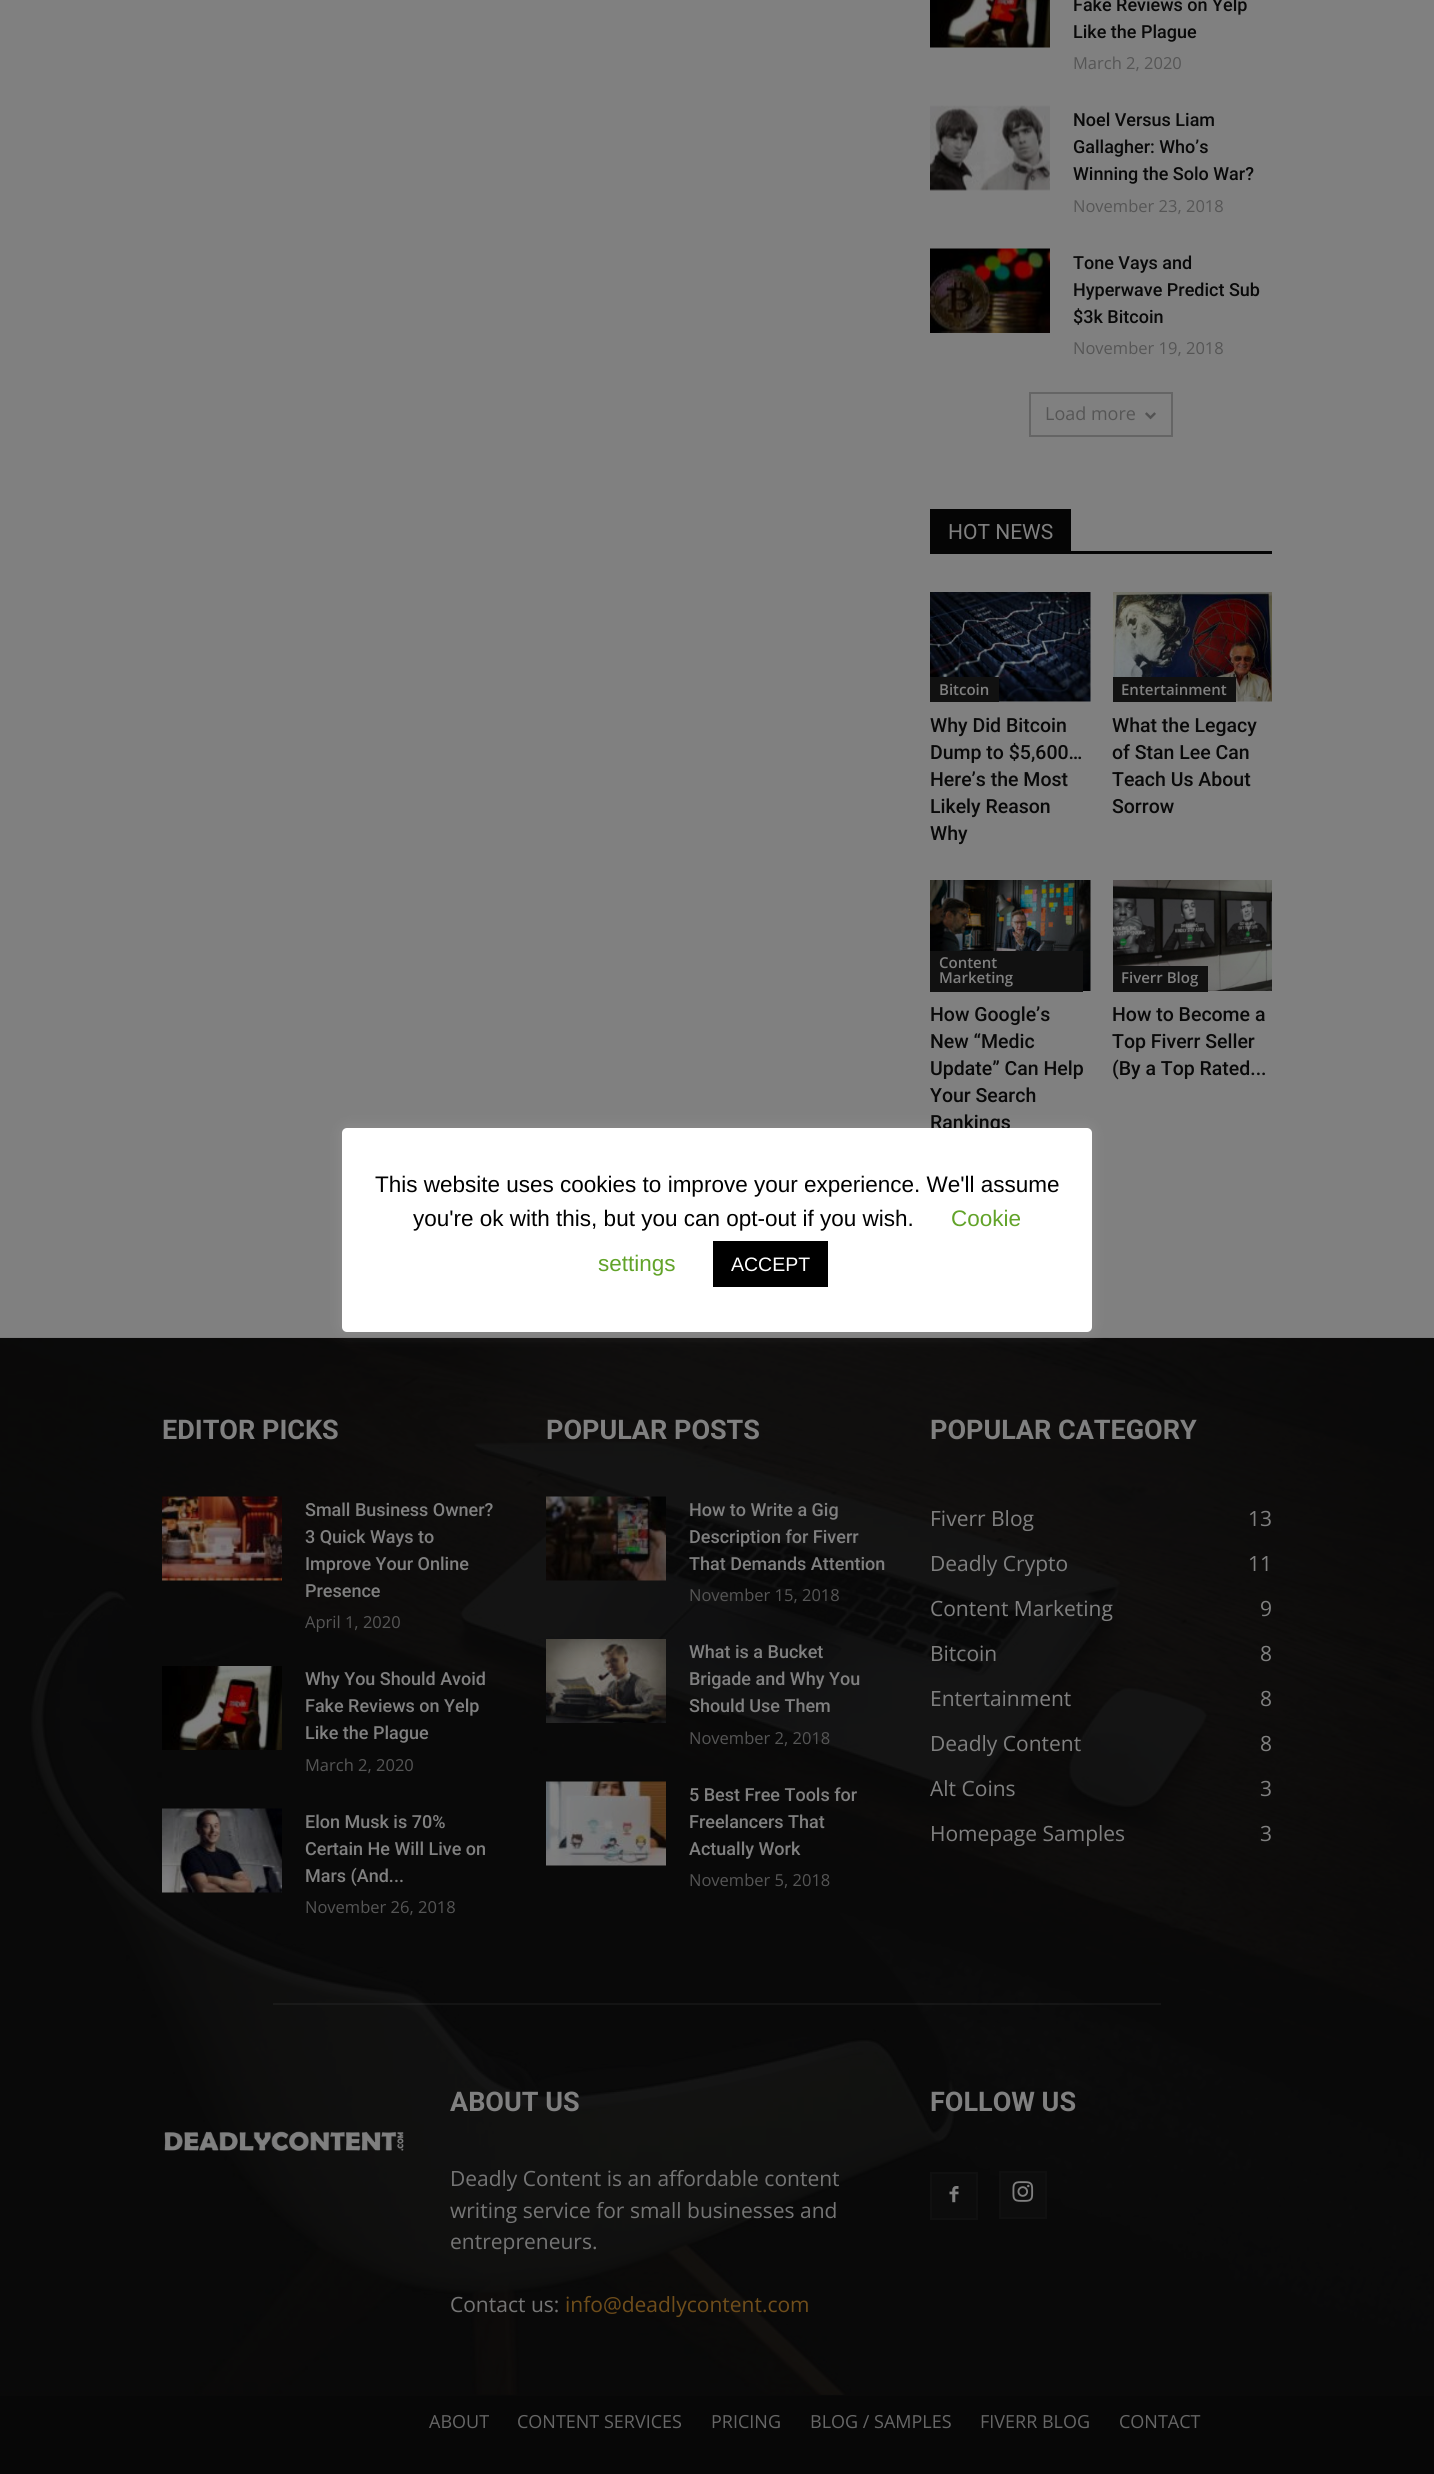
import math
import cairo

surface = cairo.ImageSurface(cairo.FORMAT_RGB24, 1434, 2474)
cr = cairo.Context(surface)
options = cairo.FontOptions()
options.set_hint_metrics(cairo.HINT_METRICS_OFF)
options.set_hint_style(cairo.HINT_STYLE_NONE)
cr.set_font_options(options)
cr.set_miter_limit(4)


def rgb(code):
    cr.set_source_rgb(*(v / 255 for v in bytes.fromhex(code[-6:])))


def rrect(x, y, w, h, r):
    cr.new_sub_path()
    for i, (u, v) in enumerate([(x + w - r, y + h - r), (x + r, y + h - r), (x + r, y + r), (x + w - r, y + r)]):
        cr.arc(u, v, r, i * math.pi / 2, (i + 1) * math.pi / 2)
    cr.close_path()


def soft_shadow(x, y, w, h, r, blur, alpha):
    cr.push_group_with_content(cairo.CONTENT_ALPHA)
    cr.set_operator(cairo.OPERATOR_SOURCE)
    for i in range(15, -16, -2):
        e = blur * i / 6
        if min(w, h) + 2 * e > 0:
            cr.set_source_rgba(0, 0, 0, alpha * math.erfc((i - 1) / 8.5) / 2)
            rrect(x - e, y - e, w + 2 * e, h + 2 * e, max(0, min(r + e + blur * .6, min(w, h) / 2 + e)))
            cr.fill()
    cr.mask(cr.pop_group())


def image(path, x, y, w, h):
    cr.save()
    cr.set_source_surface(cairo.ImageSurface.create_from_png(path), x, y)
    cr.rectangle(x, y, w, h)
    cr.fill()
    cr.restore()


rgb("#808080")
cr.paint()
image("img/1.png", 930, 0, 120, 48)
image("img/2.png", 930, 105, 120, 86)
image("img/3.png", 930, 248, 120, 85)
cr.rectangle(1030, 393, 142, 43)
rgb("#656565")
cr.stroke()
image("img/4.png", 1145, 412, 11, 8)
rgb("#050505")
cr.rectangle(930, 551, 342, 3)
cr.fill()
cr.rectangle(930, 509, 141, 42)
cr.fill()
image("img/5.png", 930, 592, 161, 110)
rgb("#111111")
cr.rectangle(930, 677, 69, 25)
cr.fill()
image("img/6.png", 1113, 592, 159, 110)
cr.rectangle(1113, 677, 123, 25)
cr.fill()
image("img/7.png", 930, 880, 161, 111)
cr.rectangle(930, 951, 153, 41)
cr.fill()
image("img/8.png", 1113, 880, 159, 111)
cr.rectangle(1113, 966, 95, 26)
cr.fill()
rgb("#090909")
cr.rectangle(0, 1338, 1434, 1058)
cr.fill()
image("img/9.png", 0, 1337, 1434, 1058)
image("img/10.png", 162, 1496, 120, 85)
image("img/11.png", 162, 1666, 120, 84)
image("img/12.png", 162, 1808, 120, 85)
image("img/13.png", 546, 1496, 120, 85)
image("img/14.png", 546, 1639, 120, 84)
image("img/15.png", 546, 1781, 120, 85)
cr.set_source_rgba(0.502, 0.502, 0.502, 0.1)
cr.rectangle(273, 2003, 888, 2)
cr.fill()
rgb("#0c0c0c")
cr.rectangle(932, 2174, 44, 44)
cr.fill()
image("img/16.png", 949, 2186, 10, 17)
cr.rectangle(931, 2173, 46, 46)
rgb("#101010")
cr.stroke()
rgb("#0d0d0d")
cr.rectangle(1001, 2173, 44, 44)
cr.fill()
image("img/17.png", 1012, 2181, 22, 21)
cr.rectangle(1000, 2172, 46, 46)
rgb("#101010")
cr.stroke()
image("img/18.png", 164, 2131, 240, 20)
rgb("#070707")
cr.rectangle(0, 2396, 1434, 78)
cr.fill()
rgb("#acabab")
soft_shadow(342, 1127, 750, 204, 5, 7.5, 0.3)
cr.select_font_face("Roboto Medium")
cr.set_font_size(18)
rgb("#090909")
cr.move_to(1073, 11)
cr.show_text("Fake Reviews on Yelp")
cr.move_to(1073, 38)
cr.show_text("Like the Plague")
cr.select_font_face("Open Sans")
cr.set_font_size(16.5)
rgb("#555555")
cr.move_to(1073, 69)
cr.show_text("March 2, 2020")
cr.select_font_face("Roboto Medium")
cr.set_font_size(18)
rgb("#090909")
for x, y, s in [
    (1073, 126, "Noel Versus Liam"),
    (1073, 153, "Gallagher: Who’s"),
    (1073, 180, "Winning the Solo War?"),
]:
    cr.move_to(x, y)
    cr.show_text(s)
cr.select_font_face("Open Sans")
cr.set_font_size(16.5)
rgb("#555555")
cr.move_to(1073, 212)
cr.show_text("November 23, 2018")
cr.select_font_face("Roboto Medium")
cr.set_font_size(18)
rgb("#090909")
for x, y, s in [
    (1073, 269, "Tone Vays and"),
    (1073, 296, "Hyperwave Predict Sub"),
    (1073, 323, "$3k Bitcoin"),
]:
    cr.move_to(x, y)
    cr.show_text(s)
cr.select_font_face("Open Sans")
cr.set_font_size(16.5)
rgb("#555555")
cr.move_to(1073, 354)
cr.show_text("November 19, 2018")
cr.set_font_size(18)
cr.move_to(1045, 420)
cr.show_text("Load more")
cr.select_font_face("Roboto")
cr.set_font_size(21)
rgb("#808080")
cr.move_to(948, 539)
cr.show_text("HOT NEWS")
cr.select_font_face("Open Sans SemiBold")
cr.set_font_size(15)
cr.move_to(939, 695)
cr.show_text("Bitcoin")
cr.select_font_face("Roboto Medium")
cr.set_font_size(19.5)
rgb("#090909")
for x, y, s in [
    (930, 732, "Why Did Bitcoin"),
    (930, 759, "Dump to $5,600…"),
    (930, 786, "Here’s the Most"),
    (930, 813, "Likely Reason"),
    (930, 840, "Why"),
]:
    cr.move_to(x, y)
    cr.show_text(s)
cr.select_font_face("Open Sans SemiBold")
cr.set_font_size(15)
rgb("#808080")
cr.move_to(1121, 695)
cr.show_text("Entertainment")
cr.select_font_face("Roboto Medium")
cr.set_font_size(19.5)
rgb("#090909")
for x, y, s in [
    (1112, 732, "What the Legacy"),
    (1112, 759, "of Stan Lee Can"),
    (1112, 786, "Teach Us About"),
    (1112, 813, "Sorrow"),
]:
    cr.move_to(x, y)
    cr.show_text(s)
cr.select_font_face("Open Sans SemiBold")
cr.set_font_size(15)
rgb("#808080")
cr.move_to(939, 968)
cr.show_text("Content")
cr.move_to(939, 983)
cr.show_text("Marketing")
cr.select_font_face("Roboto Medium")
cr.set_font_size(19.5)
rgb("#090909")
for x, y, s in [
    (930, 1021, "How Google’s"),
    (930, 1048, "New “Medic"),
    (930, 1075, "Update” Can Help"),
    (930, 1102, "Your Search"),
    (930, 1129, "Rankings"),
]:
    cr.move_to(x, y)
    cr.show_text(s)
cr.select_font_face("Open Sans SemiBold")
cr.set_font_size(15)
rgb("#808080")
cr.move_to(1121, 983)
cr.show_text("Fiverr Blog")
cr.select_font_face("Roboto Medium")
cr.set_font_size(19.5)
rgb("#090909")
for x, y, s in [
    (1112, 1021, "How to Become a"),
    (1112, 1048, "Top Fiverr Seller"),
    (1112, 1075, "(By a Top Rated..."),
]:
    cr.move_to(x, y)
    cr.show_text(s)
cr.select_font_face("Roboto", cairo.FONT_SLANT_NORMAL, cairo.FONT_WEIGHT_BOLD)
cr.set_font_size(27)
rgb("#808080")
cr.move_to(162, 1439)
cr.show_text("EDITOR PICKS")
cr.select_font_face("Roboto Medium")
cr.set_font_size(18)
for x, y, s in [
    (305, 1516, "Small Business Owner?"),
    (305, 1543, "3 Quick Ways to"),
    (305, 1570, "Improve Your Online"),
    (305, 1597, "Presence"),
]:
    cr.move_to(x, y)
    cr.show_text(s)
cr.select_font_face("Open Sans")
cr.set_font_size(16.5)
rgb("#555555")
cr.move_to(305, 1628)
cr.show_text("April 1, 2020")
cr.select_font_face("Roboto Medium")
cr.set_font_size(18)
rgb("#808080")
for x, y, s in [
    (305, 1685, "Why You Should Avoid"),
    (305, 1712, "Fake Reviews on Yelp"),
    (305, 1739, "Like the Plague"),
]:
    cr.move_to(x, y)
    cr.show_text(s)
cr.select_font_face("Open Sans")
cr.set_font_size(16.5)
rgb("#555555")
cr.move_to(305, 1771)
cr.show_text("March 2, 2020")
cr.select_font_face("Roboto Medium")
cr.set_font_size(18)
rgb("#808080")
for x, y, s in [
    (305, 1828, "Elon Musk is 70%"),
    (305, 1855, "Certain He Will Live on"),
    (305, 1882, "Mars (And..."),
]:
    cr.move_to(x, y)
    cr.show_text(s)
cr.select_font_face("Open Sans")
cr.set_font_size(16.5)
rgb("#555555")
cr.move_to(305, 1913)
cr.show_text("November 26, 2018")
cr.select_font_face("Roboto", cairo.FONT_SLANT_NORMAL, cairo.FONT_WEIGHT_BOLD)
cr.set_font_size(27)
rgb("#808080")
cr.move_to(546, 1439)
cr.show_text("POPULAR POSTS")
cr.select_font_face("Roboto Medium")
cr.set_font_size(18)
for x, y, s in [
    (689, 1516, "How to Write a Gig"),
    (689, 1543, "Description for Fiverr"),
    (689, 1570, "That Demands Attention"),
]:
    cr.move_to(x, y)
    cr.show_text(s)
cr.select_font_face("Open Sans")
cr.set_font_size(16.5)
rgb("#555555")
cr.move_to(689, 1601)
cr.show_text("November 15, 2018")
cr.select_font_face("Roboto Medium")
cr.set_font_size(18)
rgb("#808080")
for x, y, s in [
    (689, 1658, "What is a Bucket"),
    (689, 1685, "Brigade and Why You"),
    (689, 1712, "Should Use Them"),
]:
    cr.move_to(x, y)
    cr.show_text(s)
cr.select_font_face("Open Sans")
cr.set_font_size(16.5)
rgb("#555555")
cr.move_to(689, 1744)
cr.show_text("November 2, 2018")
cr.select_font_face("Roboto Medium")
cr.set_font_size(18)
rgb("#808080")
for x, y, s in [
    (689, 1801, "5 Best Free Tools for"),
    (689, 1828, "Freelancers That"),
    (689, 1855, "Actually Work"),
]:
    cr.move_to(x, y)
    cr.show_text(s)
cr.select_font_face("Open Sans")
cr.set_font_size(16.5)
rgb("#555555")
cr.move_to(689, 1886)
cr.show_text("November 5, 2018")
cr.select_font_face("Roboto", cairo.FONT_SLANT_NORMAL, cairo.FONT_WEIGHT_BOLD)
cr.set_font_size(27)
rgb("#808080")
cr.move_to(930, 1439)
cr.show_text("POPULAR CATEGORY")
cr.select_font_face("Open Sans")
cr.set_font_size(21)
for x, y, s in [
    (930, 1526, "Fiverr Blog"),
    (1248, 1526, "13"),
    (930, 1571, "Deadly Crypto"),
    (1248, 1571, "11"),
    (930, 1616, "Content Marketing"),
    (1260, 1616, "9"),
    (930, 1661, "Bitcoin"),
    (1260, 1661, "8"),
    (930, 1706, "Entertainment"),
    (1260, 1706, "8"),
    (930, 1751, "Deadly Content"),
    (1260, 1751, "8"),
    (930, 1796, "Alt Coins"),
    (1260, 1796, "3"),
    (930, 1841, "Homepage Samples"),
    (1260, 1841, "3"),
]:
    cr.move_to(x, y)
    cr.show_text(s)
cr.select_font_face("Roboto", cairo.FONT_SLANT_NORMAL, cairo.FONT_WEIGHT_BOLD)
cr.set_font_size(27)
cr.move_to(450, 2111)
cr.show_text("ABOUT US")
cr.select_font_face("Open Sans")
cr.set_font_size(21)
rgb("#757575")
for x, y, s in [
    (450, 2186, "Deadly Content is an affordable content"),
    (450, 2218, "writing service for small businesses and"),
    (450, 2249, "entrepreneurs."),
    (450, 2312, "Contact us:"),
]:
    cr.move_to(x, y)
    cr.show_text(s)
rgb("#6f4d1a")
cr.move_to(565, 2312)
cr.show_text("info@deadlycontent.com")
cr.select_font_face("Roboto", cairo.FONT_SLANT_NORMAL, cairo.FONT_WEIGHT_BOLD)
cr.set_font_size(27)
rgb("#808080")
cr.move_to(930, 2111)
cr.show_text("FOLLOW US")
cr.select_font_face("Open Sans")
cr.set_font_size(18)
rgb("#666666")
for x, y, s in [
    (429, 2428, "ABOUT"),
    (517, 2428, "CONTENT SERVICES"),
    (711, 2428, "PRICING"),
    (810, 2428, "BLOG / SAMPLES"),
    (980, 2428, "FIVERR BLOG"),
    (1119, 2428, "CONTACT"),
]:
    cr.move_to(x, y)
    cr.show_text(s)
rgb("#ffffff")
rrect(342, 1128, 750, 204, 5)
cr.fill()
cr.select_font_face("Liberation Sans")
cr.set_font_size(22.5)
rgb("#000000")
cr.move_to(375, 1192)
cr.show_text("This website uses cookies to improve your experience. We'll assume")
cr.move_to(413, 1226)
cr.show_text("you're ok with this, but you can opt-out if you wish.")
rgb("#62a329")
cr.move_to(951, 1226)
cr.show_text("Cookie")
cr.move_to(598, 1271)
cr.show_text("settings")
rgb("#000000")
cr.rectangle(713, 1241, 115, 46)
cr.fill()
cr.set_font_size(19.5)
rgb("#ffffff")
cr.move_to(731, 1271)
cr.show_text("ACCEPT")
surface.write_to_png("page.png")
